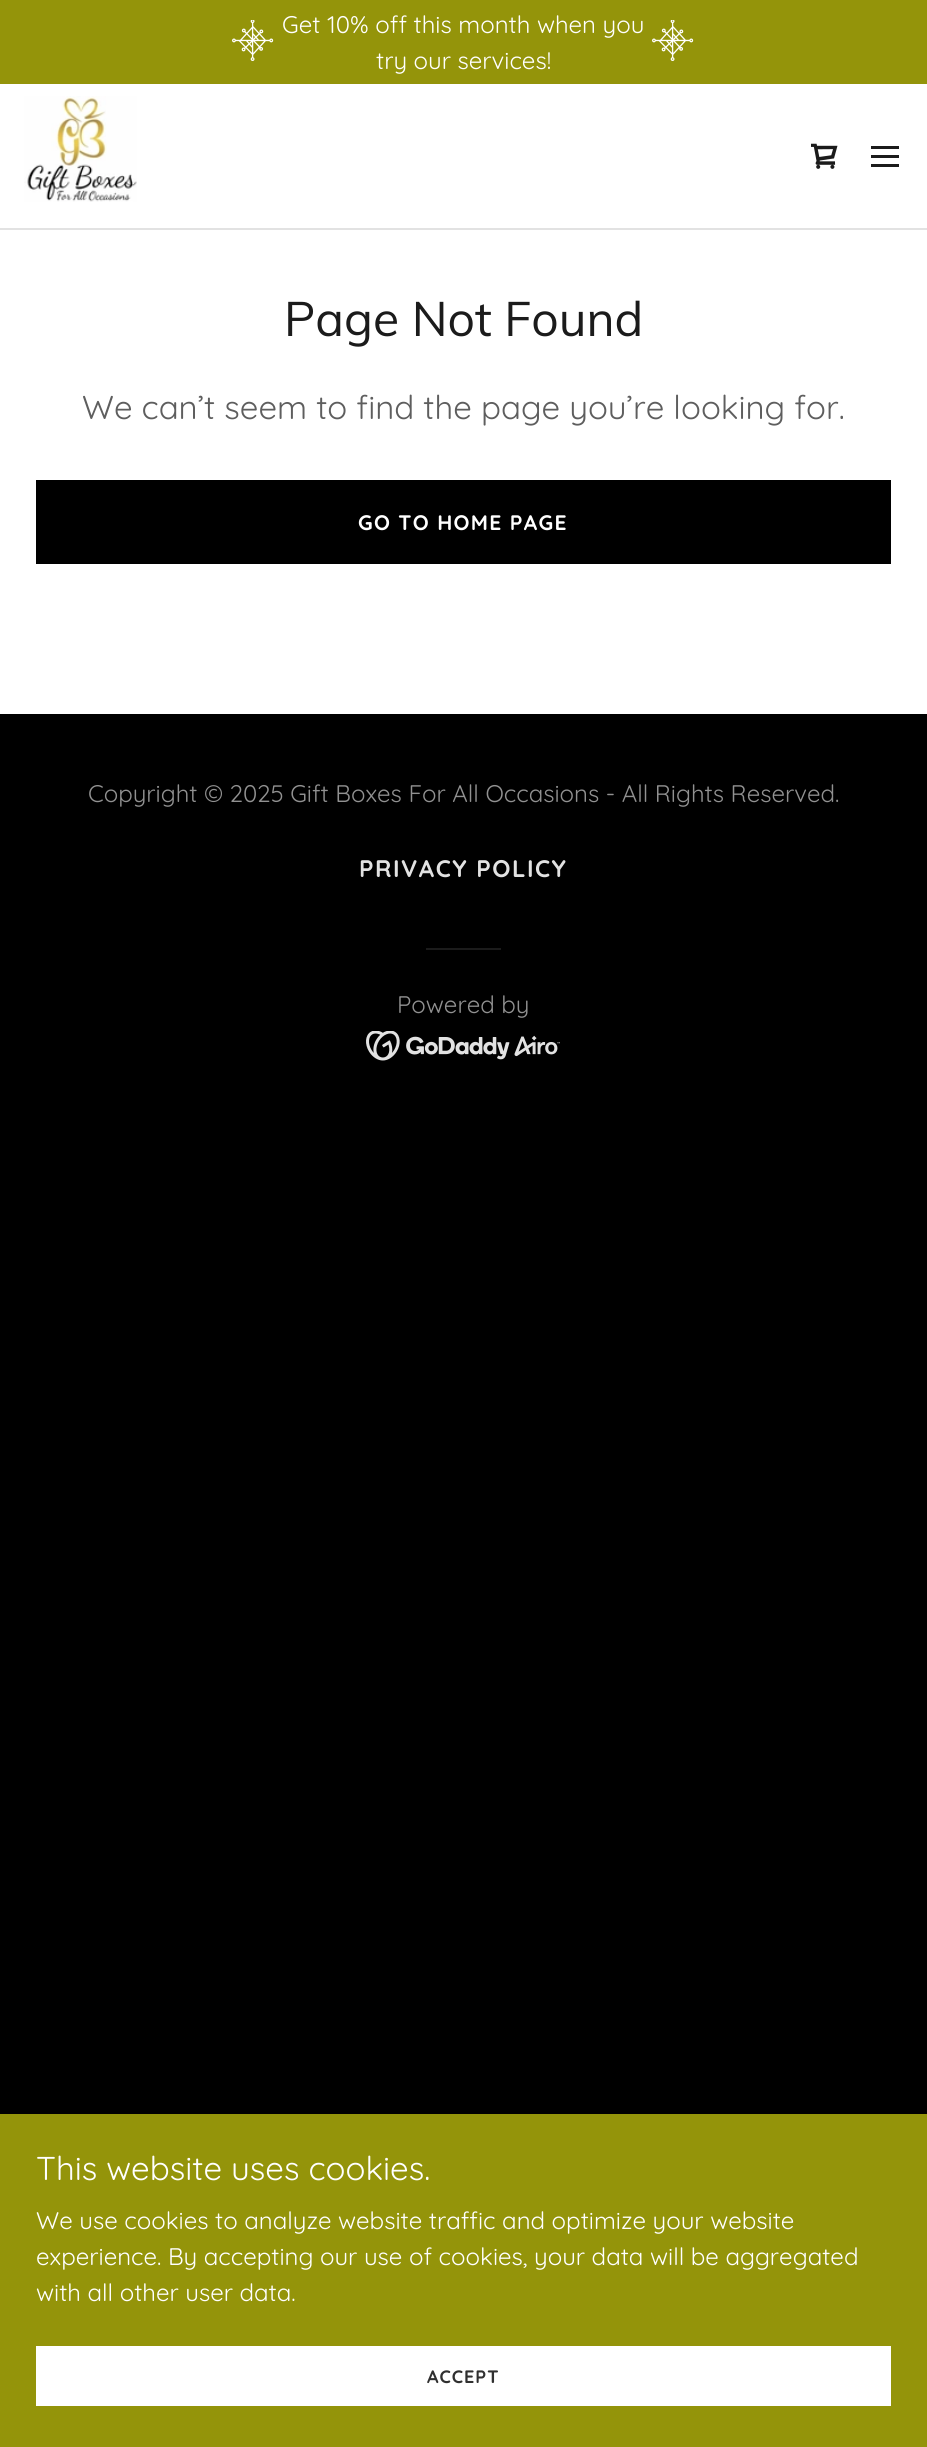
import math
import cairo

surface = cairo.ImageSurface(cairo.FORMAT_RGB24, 927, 2447)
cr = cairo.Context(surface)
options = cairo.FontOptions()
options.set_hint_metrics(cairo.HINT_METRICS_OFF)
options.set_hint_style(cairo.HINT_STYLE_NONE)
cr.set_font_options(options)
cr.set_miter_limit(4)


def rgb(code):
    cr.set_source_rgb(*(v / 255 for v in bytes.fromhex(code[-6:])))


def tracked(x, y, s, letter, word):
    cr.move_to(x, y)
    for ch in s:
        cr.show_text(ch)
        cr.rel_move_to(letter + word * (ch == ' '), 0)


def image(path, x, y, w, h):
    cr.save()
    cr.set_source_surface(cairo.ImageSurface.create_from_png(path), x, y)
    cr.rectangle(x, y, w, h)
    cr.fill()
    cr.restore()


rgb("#000000")
cr.paint()
rgb("#94940a")
cr.rectangle(0, 0, 927, 84)
cr.fill()
image("img/1.png", 232, 20, 42, 41)
image("img/1.png", 652, 20, 42, 41)
rgb("#ffffff")
cr.rectangle(0, 84, 927, 144)
cr.fill()
image("img/2.png", 24, 96, 113, 106)
image("img/3.png", 811, 143, 27, 26)
for x, y, w, h, color in [
    (871, 146, 28, 3, "#1b1b1b"),
    (871, 155, 28, 3, "#1b1b1b"),
    (871, 164, 28, 3, "#1b1b1b"),
    (0, 228, 927, 2, "#e2e2e2"),
    (0, 230, 927, 484, "#ffffff"),
    (36, 480, 855, 84, "#000000"),
    (426, 948, 75, 2, "#1b1b1b"),
]:
    rgb(color)
    cr.rectangle(x, y, w, h)
    cr.fill()
image("img/4.png", 366, 1031, 194, 30)
rgb("#94940a")
cr.rectangle(0, 2114, 927, 333)
cr.fill()
rgb("#ffffff")
cr.rectangle(36, 2346, 855, 60)
cr.fill()
cr.select_font_face("Quicksand")
cr.set_font_size(24)
cr.move_to(282, 33)
cr.show_text("Get 10% off this month when you")
cr.move_to(376, 69)
cr.show_text("try our services!")
cr.select_font_face("Muli")
cr.set_font_size(48)
rgb("#1b1b1b")
cr.move_to(284, 336)
cr.show_text("Page Not Found")
cr.select_font_face("Quicksand")
cr.set_font_size(33)
rgb("#5e5e5e")
cr.move_to(82, 419)
cr.show_text("We can’t seem to find the page you’re looking for.")
cr.select_font_face("Quicksand", cairo.FONT_SLANT_NORMAL, cairo.FONT_WEIGHT_BOLD)
cr.set_font_size(21)
rgb("#ffffff")
tracked(358, 530, "GO TO HOME PAGE", 1.3, 0)
cr.select_font_face("Quicksand")
cr.set_font_size(24)
rgb("#919191")
cr.move_to(88, 802)
cr.show_text("Copyright © 2025 Gift Boxes For All Occasions - All Rights Reserved.")
cr.select_font_face("Quicksand", cairo.FONT_SLANT_NORMAL, cairo.FONT_WEIGHT_BOLD)
rgb("#e2e2e2")
tracked(359, 877, "PRIVACY POLICY", 1.5, 0)
cr.select_font_face("Quicksand")
rgb("#919191")
cr.move_to(397, 1013)
cr.show_text("Powered by")
cr.set_font_size(33)
rgb("#ffffff")
cr.move_to(36, 2180)
cr.show_text("This website uses cookies.")
cr.set_font_size(24)
for x, y, s in [
    (36, 2229, "We use cookies to analyze website traffic and optimize your website"),
    (36, 2265, "experience. By accepting our use of cookies, your data will be aggregated"),
    (36, 2301, "with all other user data."),
]:
    cr.move_to(x, y)
    cr.show_text(s)
cr.select_font_face("Quicksand", cairo.FONT_SLANT_NORMAL, cairo.FONT_WEIGHT_BOLD)
cr.set_font_size(18)
rgb("#303030")
tracked(427, 2383, "ACCEPT", 1, 0)
surface.write_to_png("page.png")
